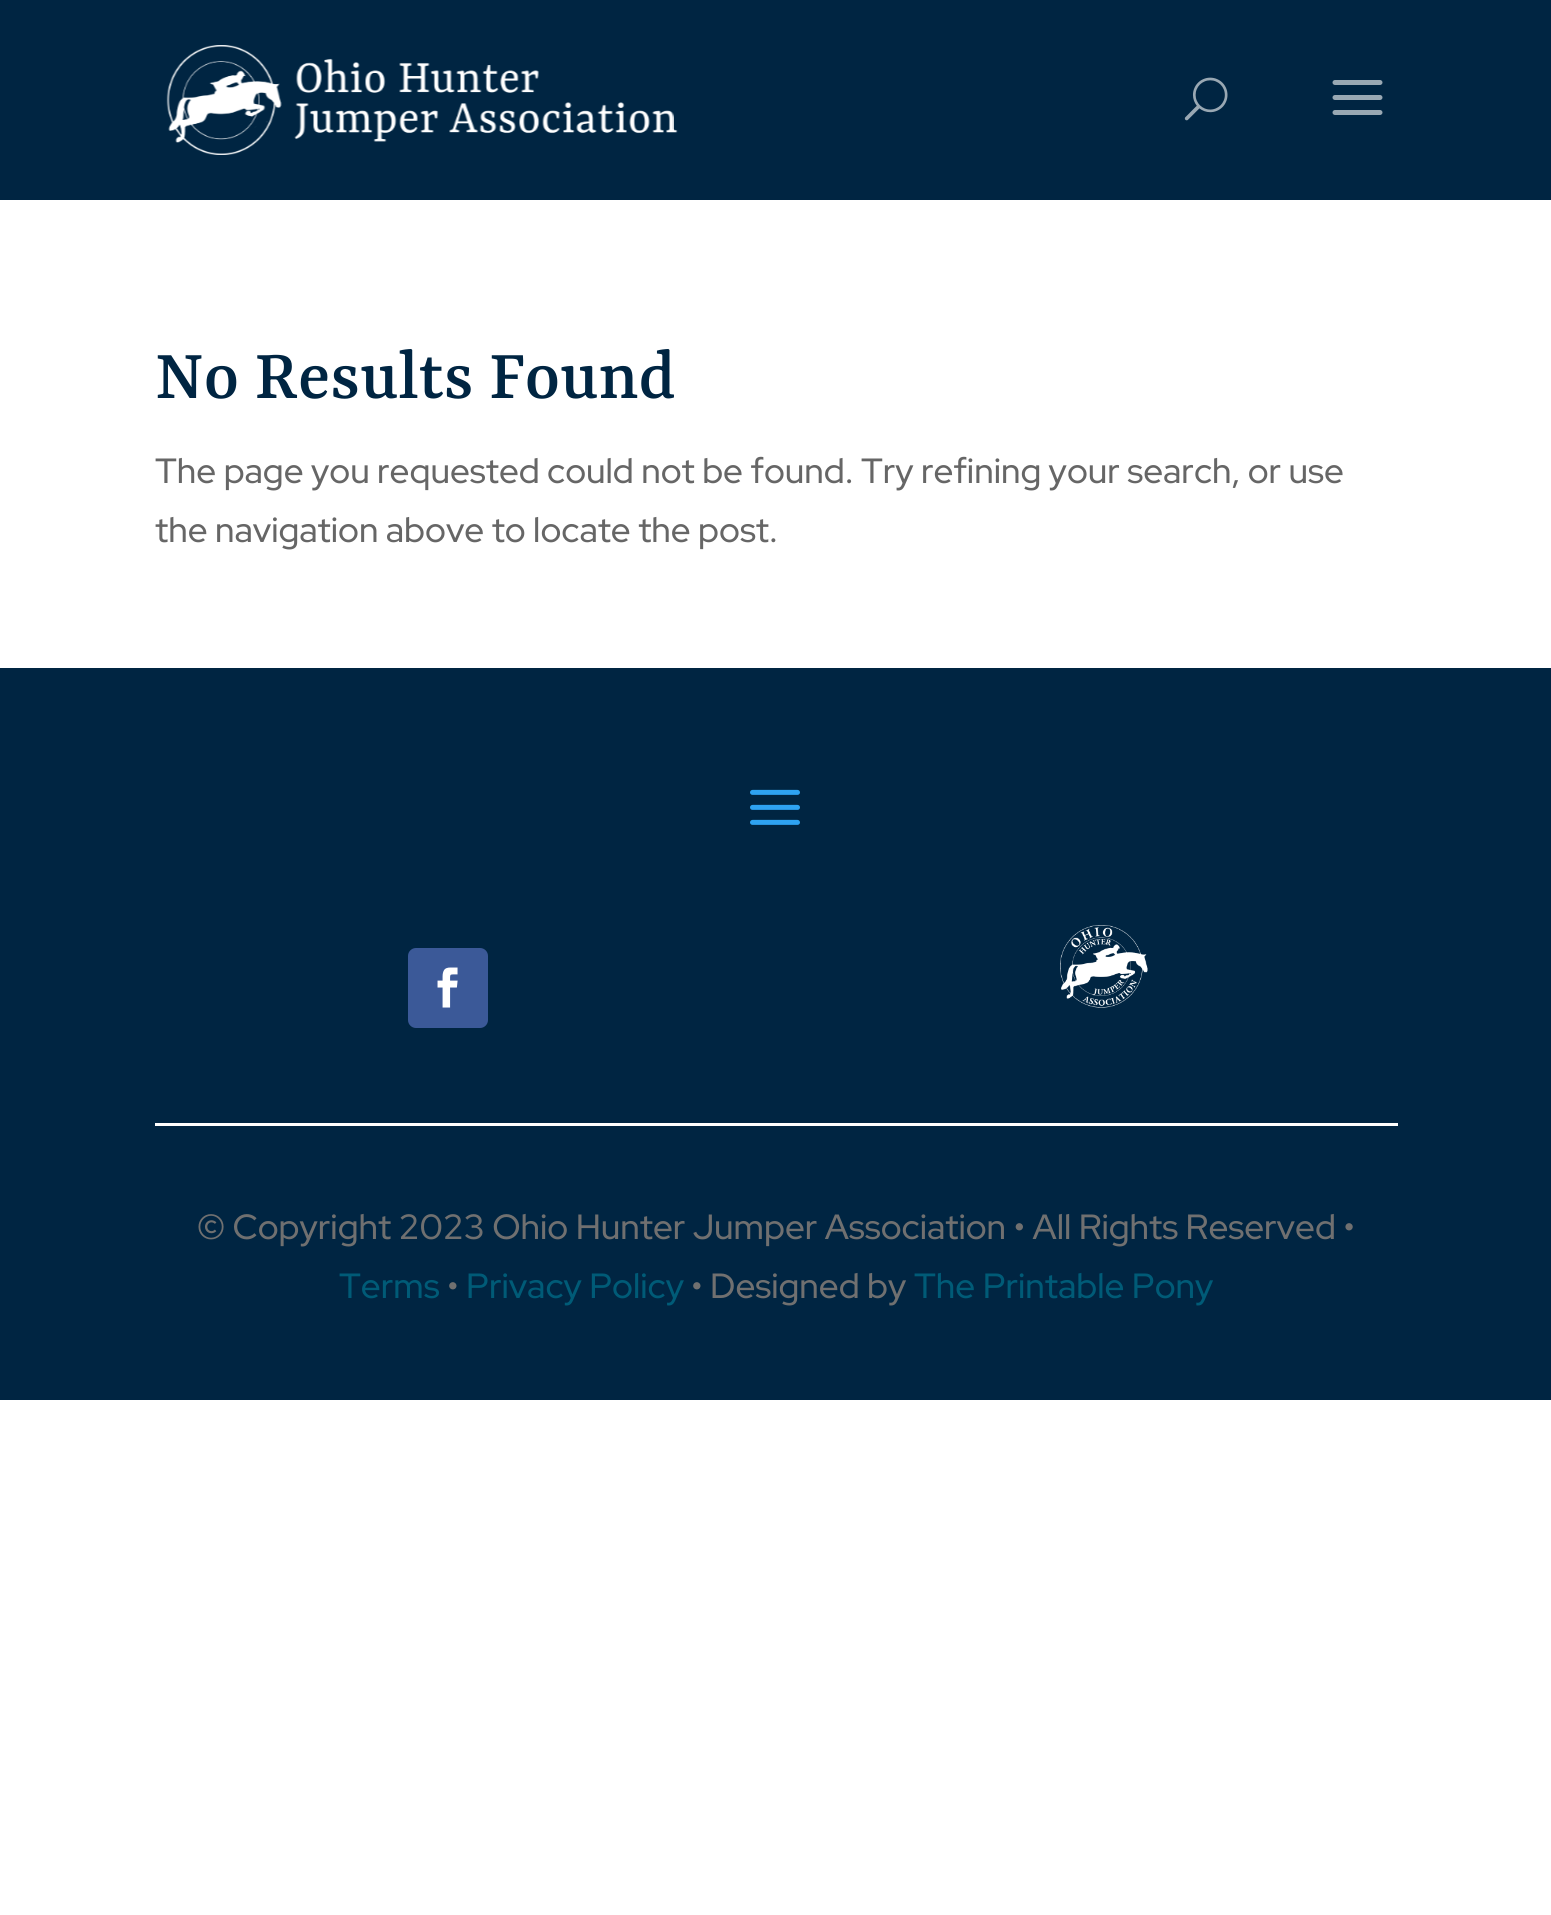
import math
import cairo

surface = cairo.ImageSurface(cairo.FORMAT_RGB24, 1551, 1915)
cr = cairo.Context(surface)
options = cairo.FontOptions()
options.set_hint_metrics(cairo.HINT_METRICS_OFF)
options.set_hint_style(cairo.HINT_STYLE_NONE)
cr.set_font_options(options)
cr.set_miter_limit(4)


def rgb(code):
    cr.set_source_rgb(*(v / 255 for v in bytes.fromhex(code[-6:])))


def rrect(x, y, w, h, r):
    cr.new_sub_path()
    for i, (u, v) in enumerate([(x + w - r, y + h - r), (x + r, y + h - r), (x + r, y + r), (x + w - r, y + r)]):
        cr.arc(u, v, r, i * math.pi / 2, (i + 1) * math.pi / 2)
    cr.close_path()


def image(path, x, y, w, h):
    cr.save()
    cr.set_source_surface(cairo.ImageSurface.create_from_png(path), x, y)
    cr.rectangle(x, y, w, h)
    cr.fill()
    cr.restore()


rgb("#ffffff")
cr.paint()
rgb("#002542")
cr.rectangle(0, 0, 1551, 200)
cr.fill()
image("img/1.png", 166, 45, 512, 110)
image("img/2.png", 1184, 77, 44, 44)
image("img/3.png", 1332, 80, 51, 35)
cr.rectangle(0, 668, 1551, 732)
cr.fill()
image("img/4.png", 750, 789, 50, 36)
rgb("#3b5998")
rrect(408, 948, 80, 80, 8)
cr.fill()
image("img/5.png", 437, 967, 21, 41)
image("img/6.png", 1060, 925, 88, 83)
rgb("#ffffff")
cr.rectangle(155, 1123, 1243, 3)
cr.fill()
cr.select_font_face("Yrsa Medium")
cr.set_font_size(75)
rgb("#002542")
cr.move_to(155, 398)
cr.show_text("No Results Found")
cr.select_font_face("Red Hat Display Medium")
cr.set_font_size(35)
rgb("#666666")
cr.move_to(155, 483)
cr.show_text("The page you requested could not be found. Try refining your search, or use")
cr.move_to(155, 542)
cr.show_text("the navigation above to locate the post.")
rgb("#707070")
cr.move_to(197, 1239)
cr.show_text("© Copyright 2023 Ohio Hunter Jumper Association • All Rights Reserved •")
rgb("#005b77")
cr.move_to(339, 1298)
cr.show_text("Terms")
rgb("#707070")
cr.move_to(447, 1298)
cr.show_text("•")
rgb("#005b77")
cr.move_to(466, 1298)
cr.show_text("Privacy Policy")
rgb("#707070")
cr.move_to(691, 1298)
cr.show_text("• Designed by")
rgb("#005b77")
cr.move_to(914, 1298)
cr.show_text("The Printable Pony")
surface.write_to_png("page.png")
